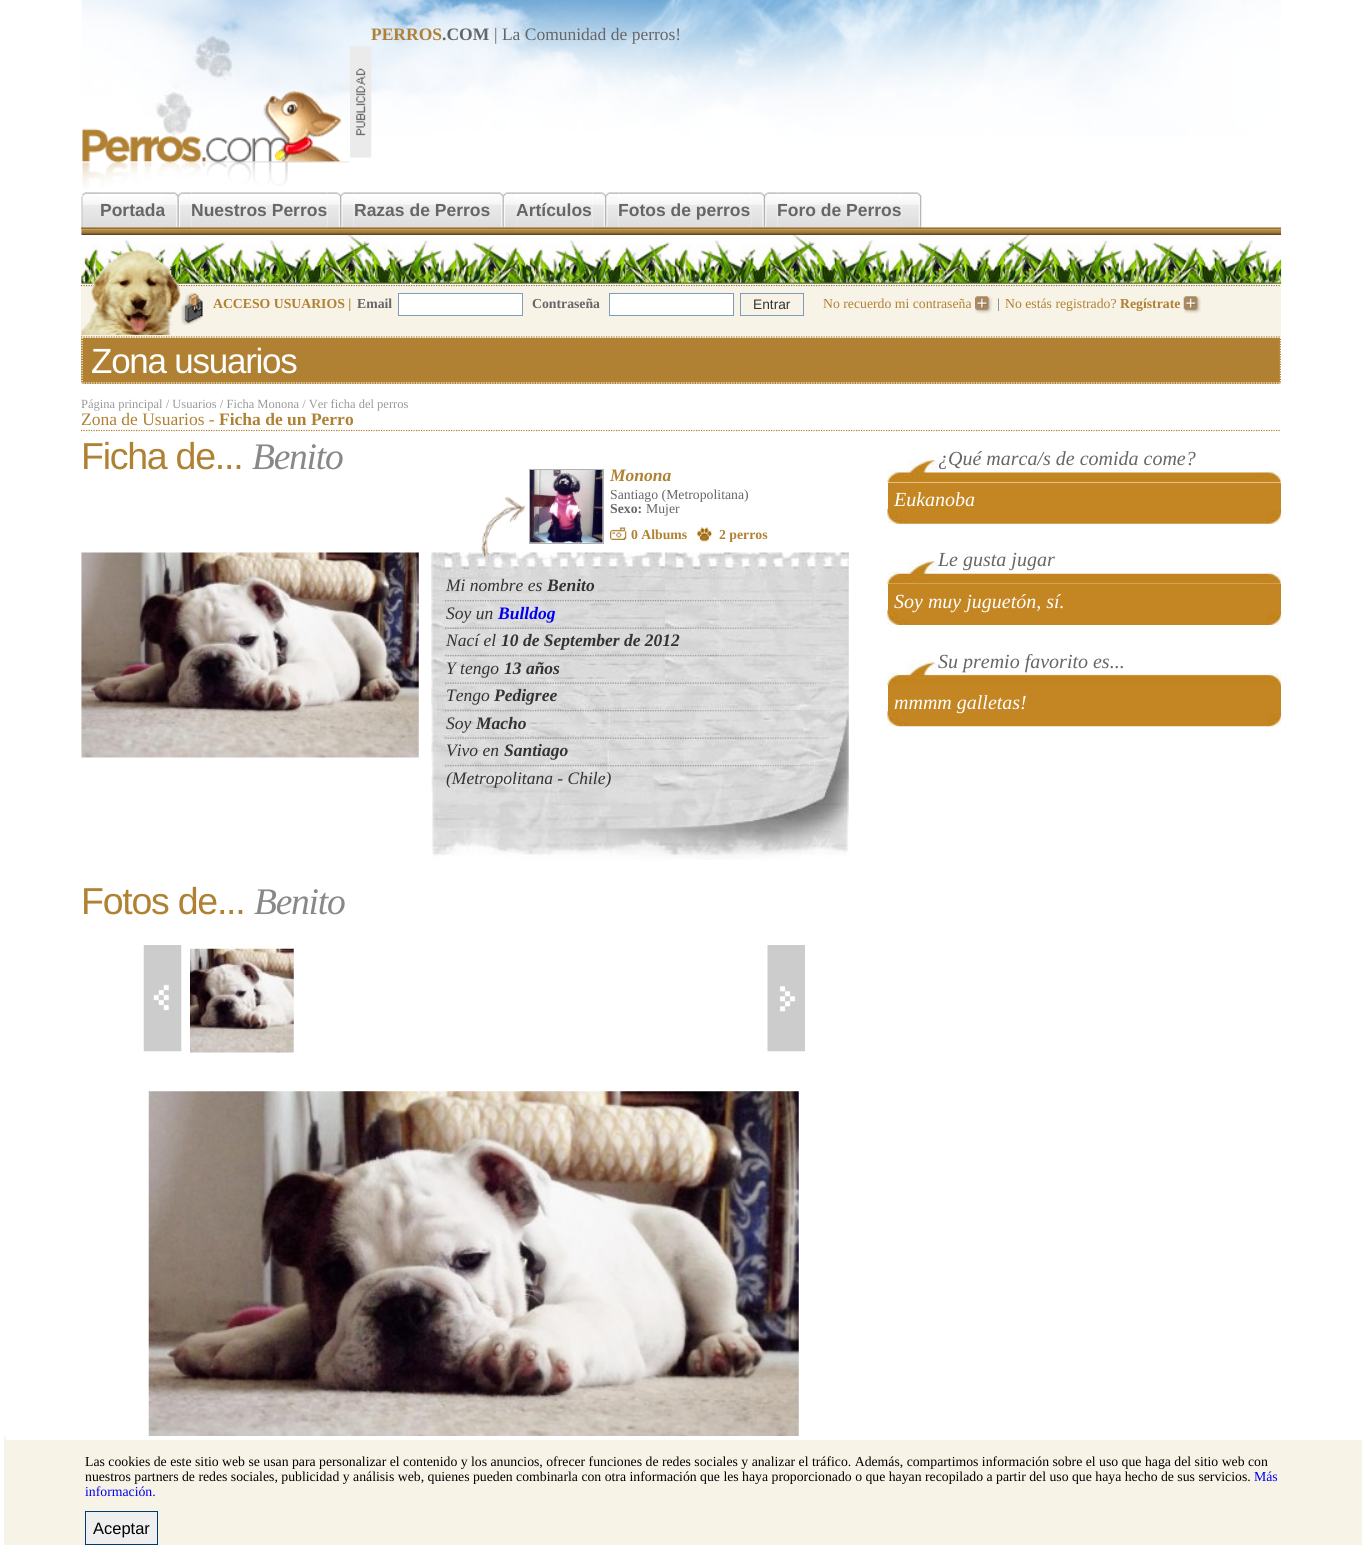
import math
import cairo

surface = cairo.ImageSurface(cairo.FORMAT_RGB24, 1362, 1545)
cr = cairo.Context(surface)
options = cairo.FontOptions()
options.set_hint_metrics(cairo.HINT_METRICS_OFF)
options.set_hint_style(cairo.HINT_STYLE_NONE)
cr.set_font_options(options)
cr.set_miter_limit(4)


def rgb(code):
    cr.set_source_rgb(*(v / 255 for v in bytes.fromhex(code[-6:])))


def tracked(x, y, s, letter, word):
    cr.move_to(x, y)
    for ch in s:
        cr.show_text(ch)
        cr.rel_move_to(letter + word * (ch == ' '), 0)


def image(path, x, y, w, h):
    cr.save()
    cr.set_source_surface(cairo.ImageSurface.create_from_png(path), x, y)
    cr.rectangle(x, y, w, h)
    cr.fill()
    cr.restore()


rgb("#ffffff")
cr.paint()
image("img/1.png", 81, 0, 1200, 136)
image("img/2.png", 350, 46, 22, 112)
image("img/3.png", 82, 90, 268, 98)
image("img/4.png", 81, 227, 1201, 8)
image("img/5.png", 81, 192, 19, 38)
image("img/6.png", 100, 192, 65, 37)
image("img/10.png", 354, 192, 136, 37)
image("img/11.png", 490, 192, 27, 37)
image("img/12.png", 516, 192, 77, 37)
image("img/9.png", 592, 192, 27, 37)
image("img/13.png", 619, 192, 133, 37)
image("img/14.png", 751, 192, 27, 37)
image("img/15.png", 777, 192, 125, 37)
image("img/16.png", 901, 192, 21, 37)
image("img/17.png", 81, 235, 1201, 49)
rgb("#f8f3e7")
cr.rectangle(81, 285, 1200, 53)
cr.fill()
image("img/18.png", 181, 292, 22, 33)
cr.new_path()
cr.move_to(81, 285.5)
cr.line_to(1281, 285.5)
rgb("#a47528")
cr.set_line_width(1.2)
cr.set_dash([1.25, 1.25])
cr.stroke()
cr.new_path()
cr.move_to(81, 337)
cr.line_to(1281, 337)
cr.stroke()
image("img/19.png", 81, 250, 100, 85)
rgb("#ffffff")
cr.rectangle(398.5, 293.5, 124, 22)
cr.fill_preserve()
rgb("#7f9db9")
cr.set_line_width(1)
cr.set_dash([])
cr.stroke()
rgb("#ffffff")
cr.rectangle(609.5, 293.5, 124, 22)
cr.fill_preserve()
rgb("#7f9db9")
cr.stroke()
cr.rectangle(740.5, 293.5, 63, 22)
cr.stroke()
image("img/20.png", 975, 296, 18, 18)
image("img/21.png", 1183, 296, 18, 18)
rgb("#b08133")
cr.rectangle(81, 338, 1200, 46)
cr.fill()
cr.save()
cr.rectangle(81, 0, 1200, 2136)
cr.clip()
cr.new_path()
cr.move_to(1280.5, 337.5)
cr.line_to(1280.5, 384)
rgb("#ffffff")
cr.set_line_width(1.2)
cr.set_dash([1.25, 1.25])
cr.stroke()
cr.restore()
cr.new_path()
cr.move_to(81, 383)
cr.line_to(1281, 383)
rgb("#ffffff")
cr.set_line_width(1.2)
cr.set_dash([1.25, 1.25])
cr.stroke()
cr.new_path()
cr.move_to(82, 337.5)
cr.line_to(82, 384)
cr.stroke()
cr.new_path()
cr.move_to(81, 430.5)
cr.line_to(1281, 430.5)
rgb("#b08133")
cr.stroke()
image("img/27.png", 431, 552, 418, 308)
image("img/22.png", 481, 497, 44, 60)
cr.rectangle(529.5, 469.5, 74, 74)
rgb("#b1b1b1")
cr.set_line_width(1)
cr.set_dash([])
cr.stroke()
image("img/23.png", 530, 470, 73, 73)
image("img/24.png", 610, 527, 17, 13)
image("img/25.png", 697, 527, 15, 15)
image("img/26.png", 81, 552, 338, 206)
image("img/28.png", 887, 508, 395, 16)
image("img/29.png", 887, 460, 395, 23)
rgb("#c48623")
cr.rectangle(888, 483, 393, 28)
cr.fill()
image("img/30.png", 887, 610, 395, 15)
image("img/31.png", 887, 561, 395, 23)
cr.rectangle(888, 584, 393, 29)
cr.fill()
image("img/32.png", 887, 711, 395, 16)
image("img/33.png", 887, 662, 395, 23)
cr.rectangle(888, 685, 393, 29)
cr.fill()
image("img/34.png", 143, 945, 39, 107)
image("img/35.png", 190, 948, 104, 105)
image("img/36.png", 767, 945, 38, 107)
image("img/37.png", 148, 1091, 651, 345)
rgb("#f8f3e7")
cr.new_path()
cr.move_to(14, 1436)
cr.line_to(1356, 1436)
cr.curve_to(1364, 1436, 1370, 1437, 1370, 1437)
cr.line_to(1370, 1545)
cr.line_to(0, 1545)
cr.line_to(0, 1437)
cr.close_path()
cr.fill()
rgb("#ffffff")
cr.rectangle(6, 1436, 1356, 4)
cr.fill()
cr.rectangle(0, 1436, 4, 109)
cr.fill()
rgb("#efefef")
cr.rectangle(85.5, 1511.5, 72, 33)
cr.fill_preserve()
rgb("#003c74")
cr.stroke()
cr.select_font_face("Liberation Serif", cairo.FONT_SLANT_NORMAL, cairo.FONT_WEIGHT_BOLD)
cr.set_font_size(17.5)
rgb("#b08133")
cr.move_to(371, 40)
cr.show_text("PERROS")
rgb("#666666")
cr.move_to(442, 40)
cr.show_text(".COM")
cr.select_font_face("Liberation Serif")
cr.move_to(494, 40)
cr.show_text("| La Comunidad de perros!")
cr.select_font_face("Liberation Sans", cairo.FONT_SLANT_NORMAL, cairo.FONT_WEIGHT_BOLD)
cr.move_to(100, 216)
cr.show_text("Portada")
image("img/7.png", 165, 192, 27, 37)
image("img/8.png", 191, 192, 137, 37)
cr.move_to(191, 216)
cr.show_text("Nuestros Perros")
image("img/9.png", 327, 192, 27, 37)
for x, y, s in [
    (354, 216, "Razas de Perros"),
    (516, 216, "Artículos"),
    (618, 216, "Fotos de perros"),
    (777, 216, "Foro de Perros"),
]:
    cr.move_to(x, y)
    cr.show_text(s)
cr.select_font_face("Liberation Serif", cairo.FONT_SLANT_NORMAL, cairo.FONT_WEIGHT_BOLD)
cr.set_font_size(13.75)
rgb("#b08133")
cr.move_to(213, 308)
cr.show_text("ACCESO USUARIOS |")
rgb("#666666")
cr.move_to(357, 308)
cr.show_text("Email")
cr.move_to(532, 308)
cr.show_text("Contraseña")
cr.select_font_face("Liberation Sans")
rgb("#333333")
cr.move_to(753, 309)
cr.show_text("Entrar")
cr.select_font_face("Liberation Serif")
rgb("#b08133")
cr.move_to(823, 308)
cr.show_text("No recuerdo mi contraseña")
rgb("#666666")
cr.move_to(997, 308)
cr.show_text("|")
rgb("#b08133")
cr.move_to(1005, 308)
cr.show_text("No estás registrado?")
cr.select_font_face("Liberation Serif", cairo.FONT_SLANT_NORMAL, cairo.FONT_WEIGHT_BOLD)
cr.move_to(1120, 308)
cr.show_text("Regístrate")
cr.select_font_face("Liberation Sans")
cr.set_font_size(35)
rgb("#ffffff")
tracked(91, 373, "Zona usuarios", -1.25, 0)
cr.select_font_face("Liberation Serif")
cr.set_font_size(12.5)
rgb("#999999")
cr.move_to(81, 408)
cr.show_text("Página principal / Usuarios / Ficha Monona / Ver ficha del perros")
cr.set_font_size(17.5)
rgb("#b08133")
cr.move_to(81, 425)
cr.show_text("Zona de Usuarios -")
cr.select_font_face("Liberation Serif", cairo.FONT_SLANT_NORMAL, cairo.FONT_WEIGHT_BOLD)
cr.move_to(219, 425)
cr.show_text("Ficha de un Perro")
cr.select_font_face("Liberation Sans")
cr.set_font_size(37.5)
tracked(81, 469, "Ficha de...", -1.25, 0)
cr.select_font_face("Liberation Serif", cairo.FONT_SLANT_ITALIC)
rgb("#888888")
tracked(252, 469, "Benito", -1.25, 0)
cr.select_font_face("Liberation Serif", cairo.FONT_SLANT_ITALIC, cairo.FONT_WEIGHT_BOLD)
cr.set_font_size(17.5)
rgb("#b08133")
cr.move_to(610, 481)
cr.show_text("Monona")
cr.select_font_face("Liberation Serif")
cr.set_font_size(13.75)
rgb("#666666")
cr.move_to(610, 499)
cr.show_text("Santiago (Metropolitana)")
cr.select_font_face("Liberation Serif", cairo.FONT_SLANT_NORMAL, cairo.FONT_WEIGHT_BOLD)
cr.move_to(610, 513)
cr.show_text("Sexo:")
cr.select_font_face("Liberation Serif")
cr.move_to(646, 513)
cr.show_text("Mujer")
cr.select_font_face("Liberation Serif", cairo.FONT_SLANT_NORMAL, cairo.FONT_WEIGHT_BOLD)
rgb("#b08133")
cr.move_to(631, 539)
cr.show_text("0 Albums")
cr.move_to(719, 539)
cr.show_text("2 perros")
cr.select_font_face("Liberation Serif", cairo.FONT_SLANT_ITALIC)
cr.set_font_size(17.5)
rgb("#333333")
cr.move_to(446, 591)
cr.show_text("Mi nombre es")
cr.select_font_face("Liberation Serif", cairo.FONT_SLANT_ITALIC, cairo.FONT_WEIGHT_BOLD)
cr.move_to(547, 591)
cr.show_text("Benito")
cr.select_font_face("Liberation Serif", cairo.FONT_SLANT_ITALIC)
cr.move_to(446, 619)
cr.show_text("Soy un")
cr.select_font_face("Liberation Serif", cairo.FONT_SLANT_ITALIC, cairo.FONT_WEIGHT_BOLD)
rgb("#0000ee")
cr.move_to(498, 619)
cr.show_text("Bulldog")
cr.select_font_face("Liberation Serif", cairo.FONT_SLANT_ITALIC)
rgb("#333333")
cr.move_to(446, 646)
cr.show_text("Nací el")
cr.select_font_face("Liberation Serif", cairo.FONT_SLANT_ITALIC, cairo.FONT_WEIGHT_BOLD)
cr.move_to(501, 646)
cr.show_text("10 de September de 2012")
cr.select_font_face("Liberation Serif", cairo.FONT_SLANT_ITALIC)
cr.move_to(446, 674)
cr.show_text("Y tengo")
cr.select_font_face("Liberation Serif", cairo.FONT_SLANT_ITALIC, cairo.FONT_WEIGHT_BOLD)
cr.move_to(504, 674)
cr.show_text("13 años")
cr.select_font_face("Liberation Serif", cairo.FONT_SLANT_ITALIC)
cr.move_to(446, 701)
cr.show_text("Tengo")
cr.select_font_face("Liberation Serif", cairo.FONT_SLANT_ITALIC, cairo.FONT_WEIGHT_BOLD)
cr.move_to(494, 701)
cr.show_text("Pedigree")
cr.select_font_face("Liberation Serif", cairo.FONT_SLANT_ITALIC)
cr.move_to(446, 729)
cr.show_text("Soy")
cr.select_font_face("Liberation Serif", cairo.FONT_SLANT_ITALIC, cairo.FONT_WEIGHT_BOLD)
cr.move_to(476, 729)
cr.show_text("Macho")
cr.select_font_face("Liberation Serif", cairo.FONT_SLANT_ITALIC)
cr.move_to(446, 756)
cr.show_text("Vivo en")
cr.select_font_face("Liberation Serif", cairo.FONT_SLANT_ITALIC, cairo.FONT_WEIGHT_BOLD)
cr.move_to(504, 756)
cr.show_text("Santiago")
cr.select_font_face("Liberation Serif", cairo.FONT_SLANT_ITALIC)
cr.move_to(446, 784)
cr.show_text("(Metropolitana - Chile)")
cr.set_font_size(20)
rgb("#666666")
cr.move_to(938, 465)
cr.show_text("¿Qué marca/s de comida come?")
rgb("#ffffff")
cr.move_to(894, 506)
cr.show_text("Eukanoba")
rgb("#666666")
cr.move_to(938, 566)
cr.show_text("Le gusta jugar")
rgb("#ffffff")
cr.move_to(894, 608)
cr.show_text("Soy muy juguetón, sí.")
rgb("#666666")
cr.move_to(938, 668)
cr.show_text("Su premio favorito es...")
rgb("#ffffff")
cr.move_to(894, 709)
cr.show_text("mmmm galletas!")
cr.select_font_face("Liberation Sans")
cr.set_font_size(37.5)
rgb("#b08133")
tracked(81, 914, "Fotos de...", -1.25, 0)
cr.select_font_face("Liberation Serif", cairo.FONT_SLANT_ITALIC)
rgb("#888888")
tracked(254, 914, "Benito", -1.25, 0)
cr.select_font_face("Liberation Serif")
cr.set_font_size(13.75)
rgb("#000000")
cr.move_to(85, 1466)
cr.show_text("Las cookies de este sitio web se usan para personalizar el contenido y los anuncios, ofrecer funciones de redes sociales y analizar el tráfico. Además, compartimos información sobre el uso que haga del sitio web con")
cr.move_to(85, 1481)
cr.show_text("nuestros partners de redes sociales, publicidad y análisis web, quienes pueden combinarla con otra información que les haya proporcionado o que hayan recopilado a partir del uso que haya hecho de sus servicios.")
rgb("#0000ee")
cr.move_to(1254, 1481)
cr.show_text("Más")
cr.move_to(85, 1496)
cr.show_text("información.")
cr.select_font_face("Liberation Sans")
cr.set_font_size(16.5)
rgb("#000000")
cr.move_to(93, 1534)
cr.show_text("Aceptar")
surface.write_to_png("page.png")
